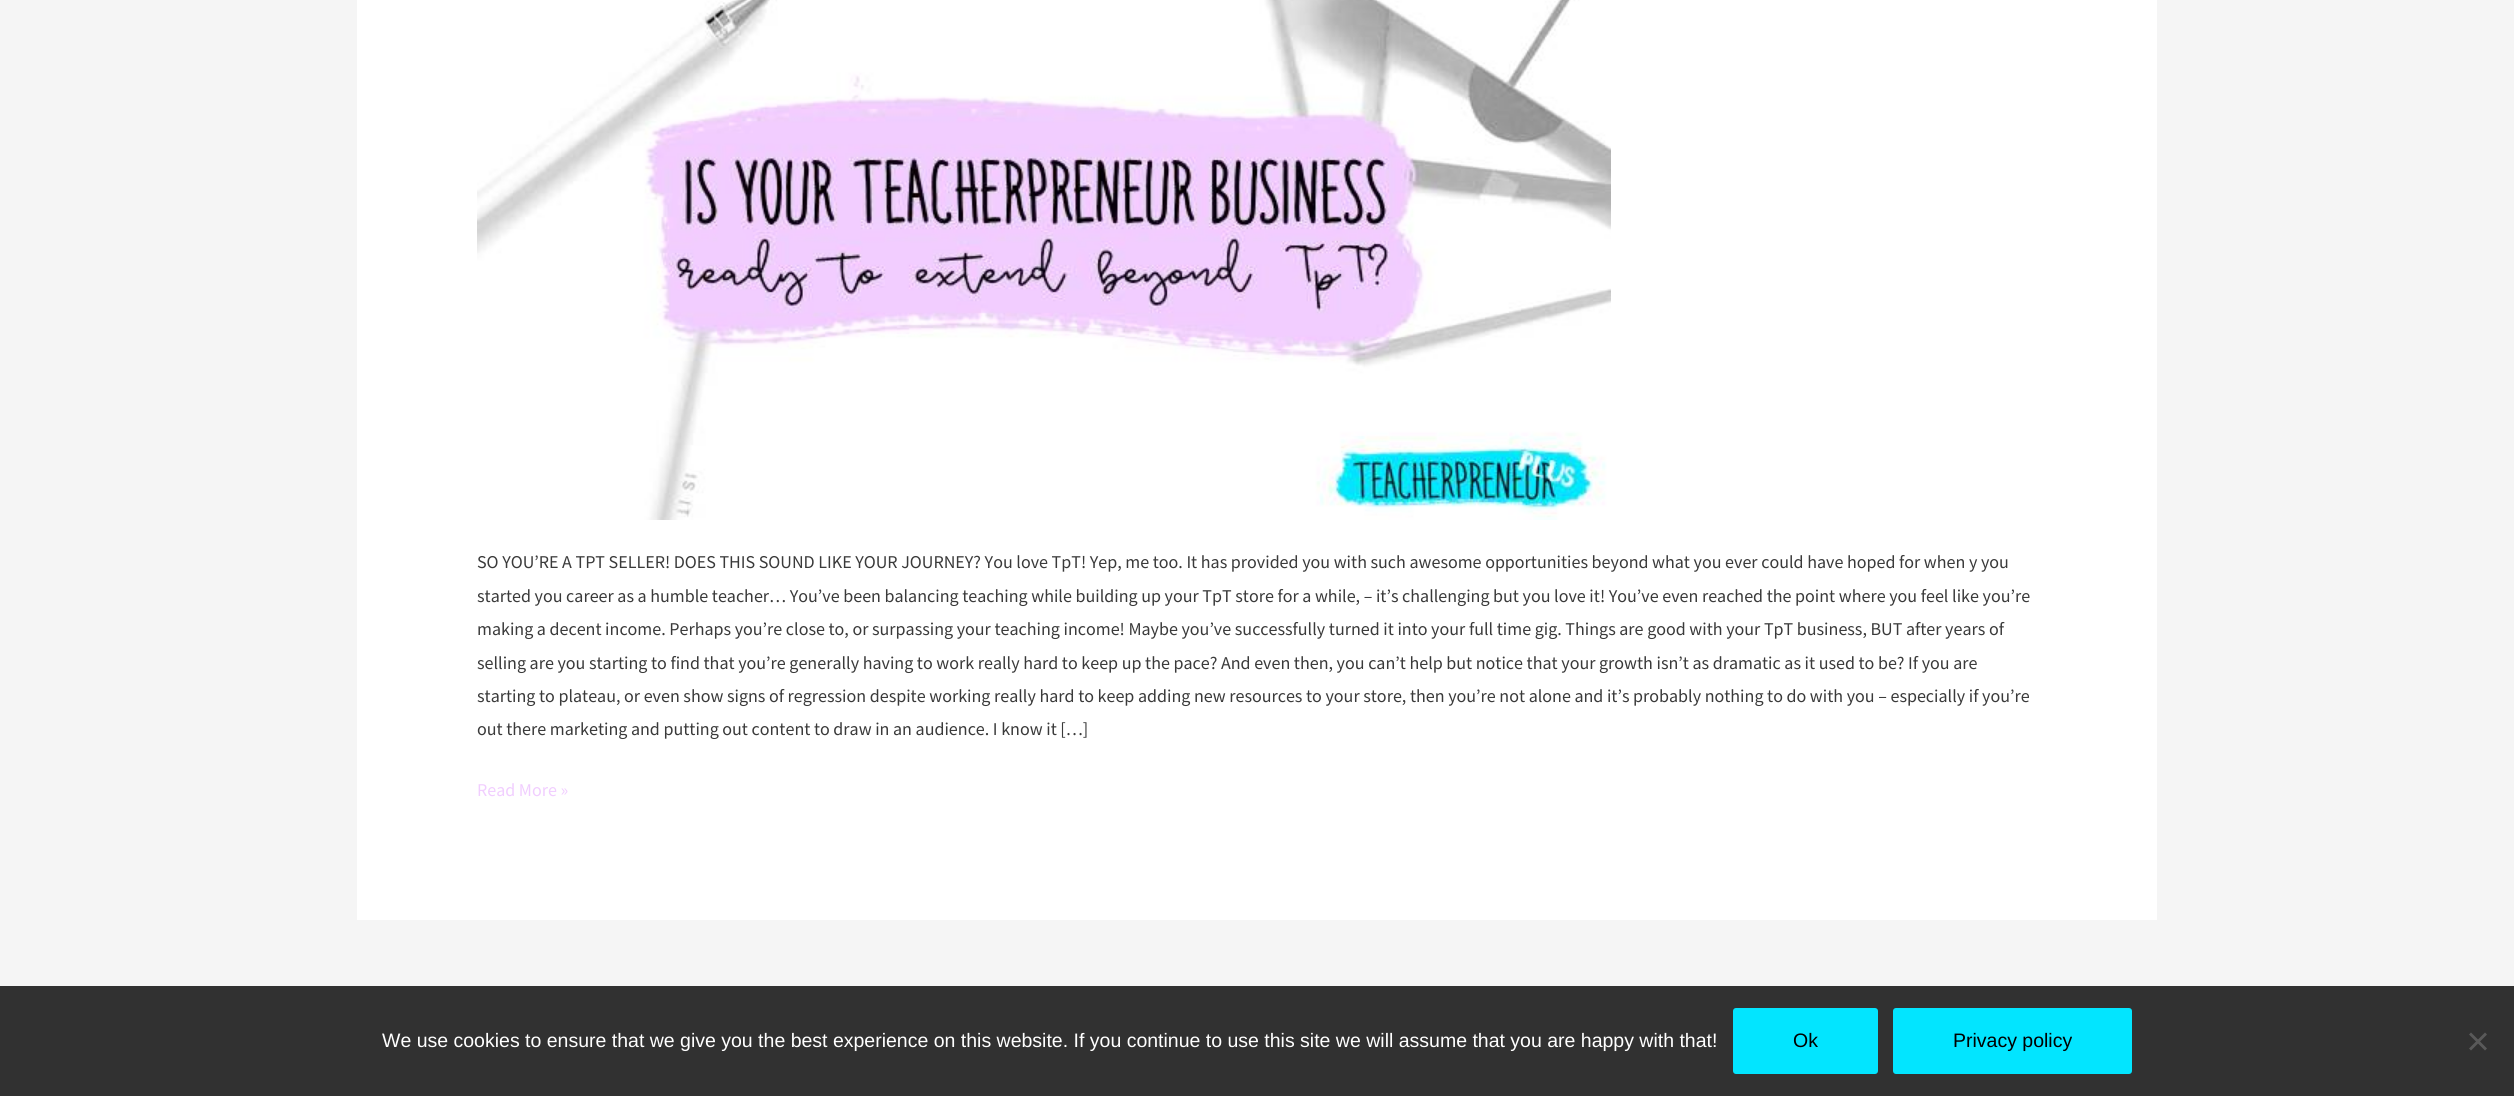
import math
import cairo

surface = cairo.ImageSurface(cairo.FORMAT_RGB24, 2514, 1096)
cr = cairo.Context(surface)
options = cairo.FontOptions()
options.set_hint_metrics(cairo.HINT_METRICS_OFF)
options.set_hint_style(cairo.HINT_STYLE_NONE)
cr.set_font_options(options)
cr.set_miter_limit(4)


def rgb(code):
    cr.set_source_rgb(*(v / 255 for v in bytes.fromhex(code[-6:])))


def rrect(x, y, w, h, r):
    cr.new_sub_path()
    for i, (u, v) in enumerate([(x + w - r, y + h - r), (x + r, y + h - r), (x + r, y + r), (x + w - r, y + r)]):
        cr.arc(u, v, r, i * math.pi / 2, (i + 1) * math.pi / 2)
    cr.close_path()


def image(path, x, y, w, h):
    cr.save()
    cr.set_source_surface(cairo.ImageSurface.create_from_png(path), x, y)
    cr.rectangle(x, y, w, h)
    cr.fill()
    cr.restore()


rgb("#f5f5f5")
cr.paint()
rgb("#ffffff")
cr.rectangle(357, 0, 1800, 920)
cr.fill()
image("img/1.png", 477, 0, 1134, 520)
rgb("#313131")
cr.rectangle(0, 986, 2514, 110)
cr.fill()
rgb("#02e5ff")
rrect(1733, 1008, 145, 66, 3)
cr.fill()
rrect(1893, 1008, 239, 66, 3)
cr.fill()
rgb("#595959")
cr.new_path()
cr.move_to(2485, 1032.5)
cr.line_to(2487, 1034.5)
cr.line_to(2471, 1050.5)
cr.line_to(2469, 1048.5)
cr.close_path()
cr.fill()
cr.new_path()
cr.move_to(2469, 1034.5)
cr.line_to(2471, 1032.5)
cr.line_to(2487, 1048.5)
cr.line_to(2485, 1050.5)
cr.close_path()
cr.fill()
cr.select_font_face("Mada")
cr.set_font_size(18)
rgb("#3a3a3a")
for x, y, s in [
    (477, 568, "SO YOU’RE A TPT SELLER! DOES THIS SOUND LIKE YOUR JOURNEY? You love TpT! Yep, me too. It has provided you with such awesome opportunities beyond what you ever could have hoped for when y you"),
    (477, 602, "started you career as a humble teacher… You’ve been balancing teaching while building up your TpT store for a while, – it’s challenging but you love it! You’ve even reached the point where you feel like you’re"),
    (477, 635, "making a decent income. Perhaps you’re close to, or surpassing your teaching income! Maybe you’ve successfully turned it into your full time gig. Things are good with your TpT business, BUT after years of"),
    (477, 669, "selling are you starting to find that you’re generally having to work really hard to keep up the pace? And even then, you can’t help but notice that your growth isn’t as dramatic as it used to be? If you are"),
    (477, 702, "starting to plateau, or even show signs of regression despite working really hard to keep adding new resources to your store, then you’re not alone and it’s probably nothing to do with you – especially if you’re"),
    (477, 735, "out there marketing and putting out content to draw in an audience. I know it […]"),
]:
    cr.move_to(x, y)
    cr.show_text(s)
rgb("#f1ceff")
cr.move_to(477, 796)
cr.show_text("Read More »")
cr.select_font_face("Liberation Sans")
cr.set_font_size(19.5)
rgb("#ffffff")
cr.move_to(382, 1047)
cr.show_text("We use cookies to ensure that we give you the best experience on this website. If you continue to use this site we will assume that you are happy with that!")
rgb("#000000")
cr.move_to(1793, 1047)
cr.show_text("Ok")
cr.move_to(1953, 1047)
cr.show_text("Privacy policy")
surface.write_to_png("page.png")
